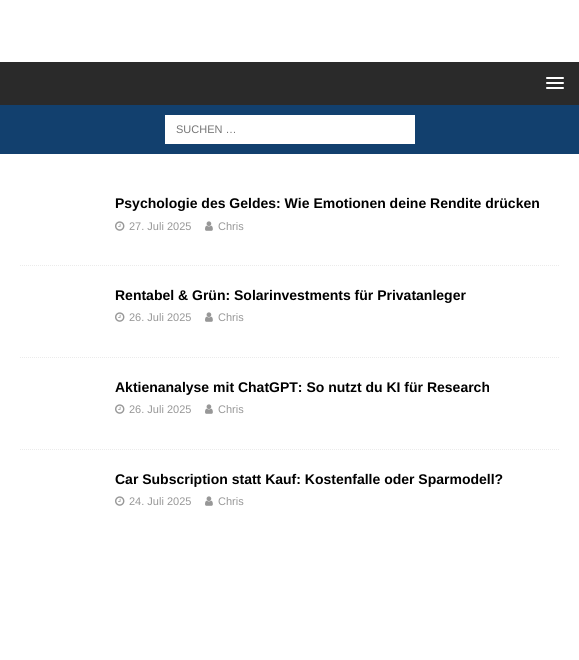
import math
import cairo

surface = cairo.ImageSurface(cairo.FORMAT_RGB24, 579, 660)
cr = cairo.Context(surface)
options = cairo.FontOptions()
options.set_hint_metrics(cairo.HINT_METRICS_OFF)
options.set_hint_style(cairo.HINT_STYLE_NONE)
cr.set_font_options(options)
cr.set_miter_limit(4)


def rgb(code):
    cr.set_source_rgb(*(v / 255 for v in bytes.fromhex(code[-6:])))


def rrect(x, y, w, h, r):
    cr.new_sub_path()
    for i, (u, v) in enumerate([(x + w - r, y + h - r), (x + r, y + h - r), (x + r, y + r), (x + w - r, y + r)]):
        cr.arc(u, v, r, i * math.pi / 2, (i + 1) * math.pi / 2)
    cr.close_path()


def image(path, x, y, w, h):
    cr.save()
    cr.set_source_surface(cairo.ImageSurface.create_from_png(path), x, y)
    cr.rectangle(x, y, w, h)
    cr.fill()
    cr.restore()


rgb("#ffffff")
cr.paint()
rgb("#2a2a2a")
cr.rectangle(0, 62, 579, 43)
cr.fill()
rgb("#ffffff")
rrect(546, 77, 18, 2, 1)
cr.fill()
rrect(546, 82, 18, 2, 1)
cr.fill()
rrect(546, 87, 18, 2, 1)
cr.fill()
rgb("#12406e")
cr.rectangle(0, 105, 579, 49)
cr.fill()
rgb("#ffffff")
cr.rectangle(165, 115, 250, 29)
cr.fill()
cr.new_path()
cr.move_to(20, 265.5)
cr.line_to(559, 265.5)
rgb("#ebebeb")
cr.set_line_width(1)
cr.set_dash([1, 1])
cr.stroke()
image("img/1.png", 115, 221, 10, 10)
image("img/2.png", 205, 221, 8, 10)
cr.new_path()
cr.move_to(20, 357.5)
cr.line_to(559, 357.5)
cr.stroke()
image("img/1.png", 115, 312, 10, 10)
image("img/2.png", 205, 312, 8, 10)
cr.new_path()
cr.move_to(20, 449.5)
cr.line_to(559, 449.5)
cr.stroke()
image("img/1.png", 115, 404, 10, 10)
image("img/2.png", 205, 404, 8, 10)
image("img/1.png", 115, 496, 10, 10)
image("img/2.png", 205, 496, 8, 10)
cr.select_font_face("Liberation Sans")
cr.set_font_size(11)
rgb("#757575")
cr.move_to(176, 133)
cr.show_text("SUCHEN …")
cr.select_font_face("Liberation Sans", cairo.FONT_SLANT_NORMAL, cairo.FONT_WEIGHT_BOLD)
cr.set_font_size(14)
rgb("#000000")
cr.move_to(115, 208)
cr.show_text("Psychologie des Geldes: Wie Emotionen deine Rendite drücken")
cr.select_font_face("Liberation Sans")
cr.set_font_size(11)
rgb("#979797")
cr.move_to(129, 230)
cr.show_text("27. Juli 2025")
cr.move_to(218, 230)
cr.show_text("Chris")
cr.select_font_face("Liberation Sans", cairo.FONT_SLANT_NORMAL, cairo.FONT_WEIGHT_BOLD)
cr.set_font_size(14)
rgb("#000000")
cr.move_to(115, 300)
cr.show_text("Rentabel & Grün: Solarinvestments für Privatanleger")
cr.select_font_face("Liberation Sans")
cr.set_font_size(11)
rgb("#979797")
cr.move_to(129, 321)
cr.show_text("26. Juli 2025")
cr.move_to(218, 321)
cr.show_text("Chris")
cr.select_font_face("Liberation Sans", cairo.FONT_SLANT_NORMAL, cairo.FONT_WEIGHT_BOLD)
cr.set_font_size(14)
rgb("#000000")
cr.move_to(115, 392)
cr.show_text("Aktienanalyse mit ChatGPT: So nutzt du KI für Research")
cr.select_font_face("Liberation Sans")
cr.set_font_size(11)
rgb("#979797")
cr.move_to(129, 413)
cr.show_text("26. Juli 2025")
cr.move_to(218, 413)
cr.show_text("Chris")
cr.select_font_face("Liberation Sans", cairo.FONT_SLANT_NORMAL, cairo.FONT_WEIGHT_BOLD)
cr.set_font_size(14)
rgb("#000000")
cr.move_to(115, 484)
cr.show_text("Car Subscription statt Kauf: Kostenfalle oder Sparmodell?")
cr.select_font_face("Liberation Sans")
cr.set_font_size(11)
rgb("#979797")
cr.move_to(129, 505)
cr.show_text("24. Juli 2025")
cr.move_to(218, 505)
cr.show_text("Chris")
surface.write_to_png("page.png")
